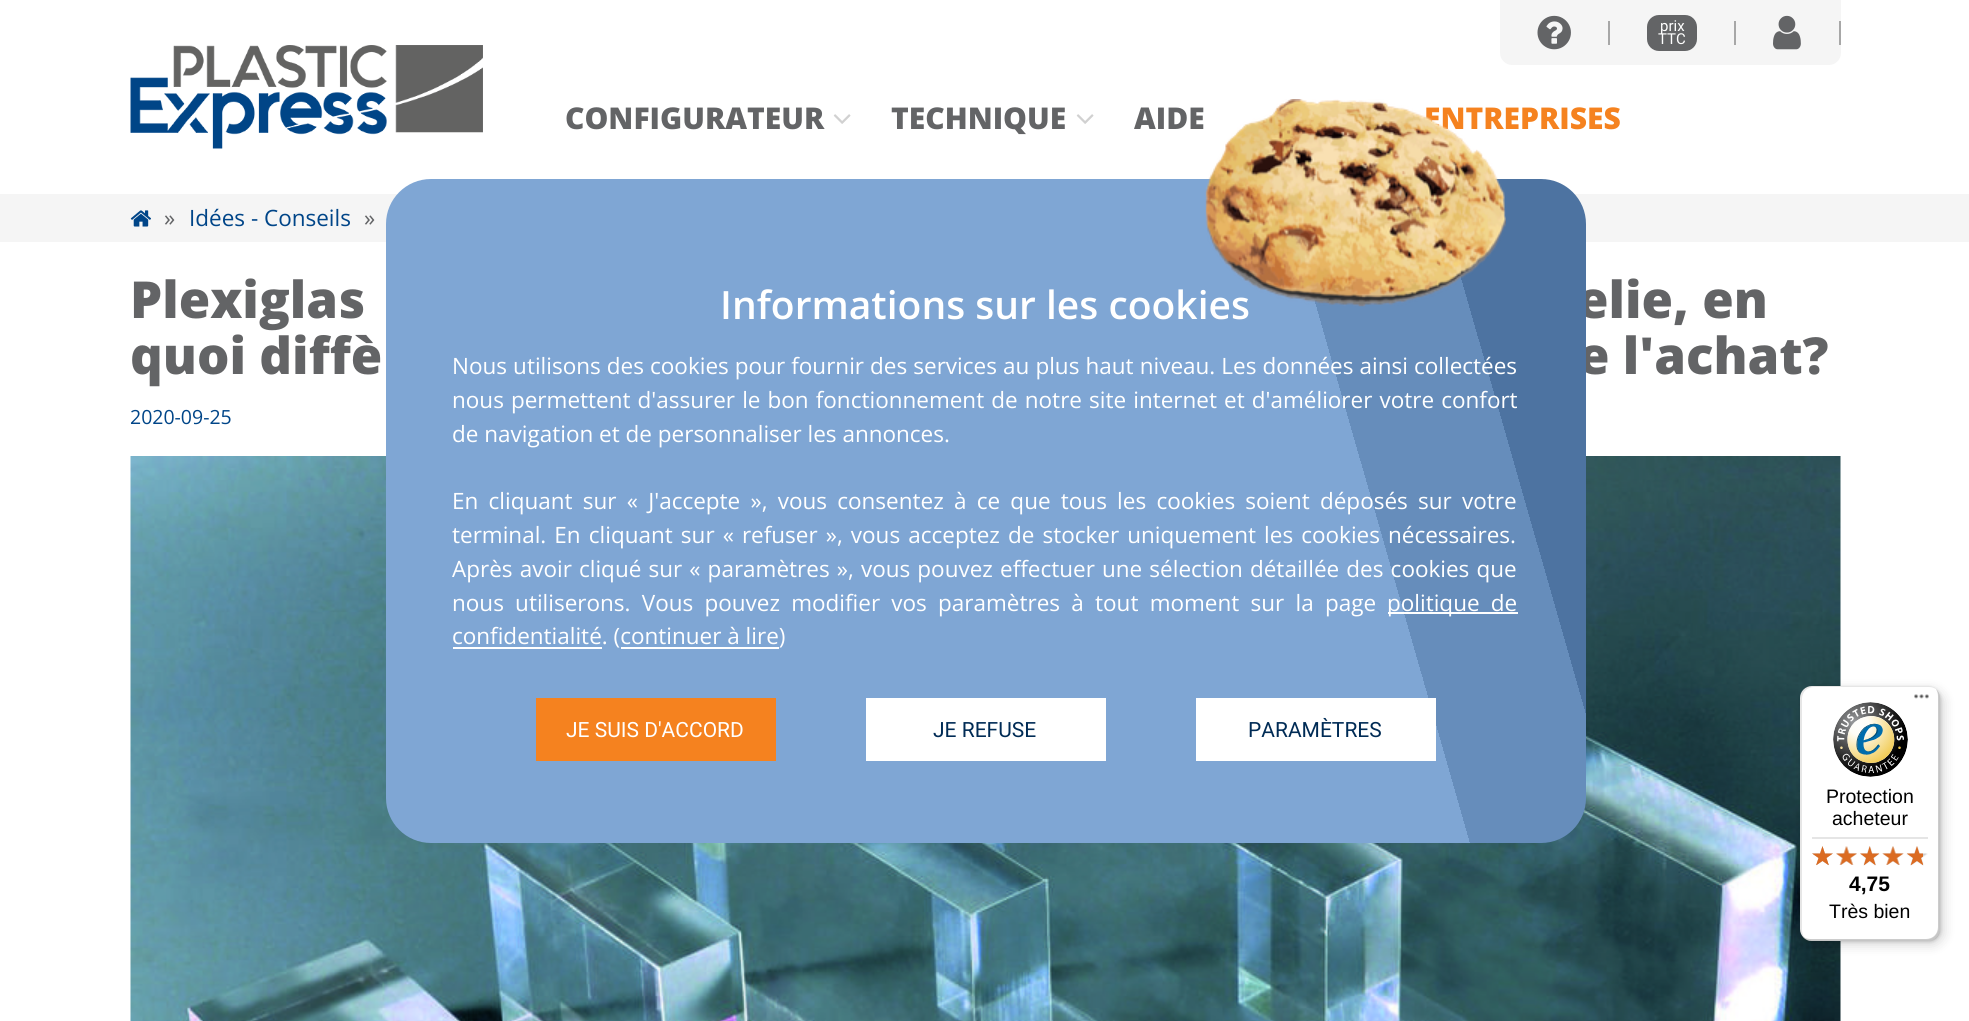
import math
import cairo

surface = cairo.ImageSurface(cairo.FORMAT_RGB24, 1969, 1021)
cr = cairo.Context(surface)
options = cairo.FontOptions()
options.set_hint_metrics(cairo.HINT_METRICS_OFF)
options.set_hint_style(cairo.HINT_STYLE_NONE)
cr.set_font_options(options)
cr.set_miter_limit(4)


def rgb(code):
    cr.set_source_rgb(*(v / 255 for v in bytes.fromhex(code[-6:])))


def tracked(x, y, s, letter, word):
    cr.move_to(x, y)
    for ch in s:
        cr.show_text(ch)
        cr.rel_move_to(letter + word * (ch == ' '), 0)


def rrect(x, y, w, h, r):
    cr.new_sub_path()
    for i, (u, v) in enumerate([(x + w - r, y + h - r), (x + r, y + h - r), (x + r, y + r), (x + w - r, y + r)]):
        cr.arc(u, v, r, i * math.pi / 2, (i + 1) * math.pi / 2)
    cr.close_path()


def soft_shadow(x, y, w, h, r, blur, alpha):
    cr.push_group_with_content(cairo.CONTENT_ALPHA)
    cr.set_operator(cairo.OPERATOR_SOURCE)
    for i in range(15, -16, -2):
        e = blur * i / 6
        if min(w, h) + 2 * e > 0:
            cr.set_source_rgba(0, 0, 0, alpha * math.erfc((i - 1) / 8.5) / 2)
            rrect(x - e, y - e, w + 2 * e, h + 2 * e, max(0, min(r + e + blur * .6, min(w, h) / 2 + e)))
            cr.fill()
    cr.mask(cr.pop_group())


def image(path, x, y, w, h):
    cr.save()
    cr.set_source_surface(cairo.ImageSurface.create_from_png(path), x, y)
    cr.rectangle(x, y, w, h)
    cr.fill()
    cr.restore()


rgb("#ffffff")
cr.paint()
image("img/1.png", 130, 45, 353, 104)
rgb("#f5f5f5")
cr.new_path()
cr.move_to(1500, 0)
cr.line_to(1841, 0)
cr.line_to(1841, 53)
cr.curve_to(1841, 59.5, 1835.5, 65, 1829, 65)
cr.line_to(1512, 65)
cr.curve_to(1505.5, 65, 1500, 59.5, 1500, 53)
cr.close_path()
cr.fill()
image("img/2.png", 1537, 15, 34, 35)
rgb("#a7a7a7")
cr.rectangle(1608, 21, 2, 24)
cr.fill()
rgb("#636466")
rrect(1647, 15, 50, 36, 12)
cr.fill()
rgb("#a7a7a7")
cr.rectangle(1734, 21, 2, 24)
cr.fill()
image("img/3.png", 1773, 15, 28, 35)
cr.rectangle(1839, 21, 2, 24)
cr.fill()
image("img/4.png", 833, 114, 18, 10)
image("img/4.png", 1076, 114, 18, 10)
rgb("#f5f5f5")
cr.rectangle(0, 194, 1969, 48)
cr.fill()
image("img/5.png", 130, 210, 21, 17)
image("img/6.png", 130, 456, 1711, 565)
rgb("#000000")
soft_shadow(1805, 690, 139, 255, 12, 6, 0.15)
soft_shadow(1802, 687, 139, 255, 12, 1.5, 0.15)
rgb("#ffffff")
rrect(1800, 686, 140, 255, 12)
cr.fill()
cr.set_source_rgba(0, 0, 0, 0.1)
cr.new_path()
cr.move_to(1814, 687)
cr.line_to(1929, 687)
cr.curve_to(1932, 687, 1934, 688, 1936, 689)
cr.curve_to(1934, 687, 1931, 686, 1928, 686)
cr.line_to(1812, 686)
cr.curve_to(1805, 686, 1800, 691, 1800, 698)
cr.line_to(1800, 929)
cr.curve_to(1800, 934, 1803, 938, 1807, 940)
cr.curve_to(1804, 938, 1802, 934, 1802, 930)
cr.line_to(1802, 699)
cr.curve_to(1802, 692, 1807, 687, 1814, 687)
cr.close_path()
cr.fill()
cr.set_source_rgba(0, 0, 0, 0.2)
cr.new_path()
cr.move_to(1802, 936)
cr.curve_to(1805, 939, 1808, 941, 1812, 941)
cr.line_to(1928, 941)
cr.curve_to(1935, 941, 1940, 936, 1940, 929)
cr.line_to(1940, 698)
cr.curve_to(1940, 694, 1938, 691, 1936, 689)
cr.curve_to(1937, 691, 1938, 693, 1938, 696)
cr.line_to(1938, 927)
cr.curve_to(1938, 934, 1933, 939, 1926, 939)
cr.line_to(1810, 939)
cr.curve_to(1807, 939, 1805, 938, 1802, 936)
cr.close_path()
cr.fill()
cr.set_source_rgba(0.196, 0.196, 0.196, 0.2)
cr.new_path()
cr.move_to(1803, 937)
cr.curve_to(1805, 939, 1808, 941, 1812, 941)
cr.line_to(1928, 941)
cr.curve_to(1935, 941, 1940, 936, 1940, 929)
cr.line_to(1940, 698)
cr.curve_to(1940, 694, 1938, 691, 1936, 689)
cr.curve_to(1938, 691, 1939, 694, 1939, 697)
cr.line_to(1939, 928)
cr.curve_to(1939, 934, 1933, 940, 1927, 940)
cr.line_to(1811, 940)
cr.curve_to(1808, 940, 1805, 939, 1803, 937)
cr.close_path()
cr.fill()
cr.set_source_rgba(1, 1, 1, 0.3)
cr.new_path()
cr.move_to(1802, 935)
cr.curve_to(1804, 939, 1807, 941, 1812, 941)
cr.line_to(1928, 941)
cr.curve_to(1935, 941, 1940, 936, 1940, 929)
cr.line_to(1940, 698)
cr.curve_to(1940, 694, 1938, 691, 1936, 689)
cr.curve_to(1938, 691, 1939, 694, 1939, 697)
cr.line_to(1939, 928)
cr.curve_to(1939, 934, 1933, 940, 1927, 940)
cr.line_to(1811, 940)
cr.curve_to(1807, 940, 1804, 938, 1802, 935)
cr.close_path()
cr.fill()
image("img/8.png", 1914, 694, 15, 5)
image("img/9.png", 1833, 702, 75, 75)
rgb("#e5e5e5")
cr.rectangle(1812, 837, 116, 2)
cr.fill()
image("img/10.png", 1812, 846, 21, 19)
image("img/11.png", 1836, 846, 21, 19)
image("img/12.png", 1860, 846, 20, 20)
image("img/13.png", 1883, 846, 20, 19)
image("img/14.png", 1906, 846, 22, 20)
image("img/15.png", 1812, 846, 21, 20)
image("img/16.png", 1836, 846, 21, 19)
image("img/17.png", 1860, 846, 20, 20)
image("img/18.png", 1882, 846, 22, 19)
image("img/19.png", 1907, 846, 16, 20)
cr.select_font_face("Roboto")
cr.set_font_size(15)
rgb("#ffffff")
cr.move_to(1660, 31)
cr.show_text("prix")
cr.move_to(1658, 44)
cr.show_text("TTC")
cr.select_font_face("Open Sans ExtraBold")
cr.set_font_size(30)
rgb("#636466")
for x, y, s in [
    (565, 129, "CONFIGURATEUR"),
    (891, 129, "TECHNIQUE"),
    (1134, 129, "AIDE"),
]:
    cr.move_to(x, y)
    cr.show_text(s)
rgb("#f5821f")
cr.move_to(1424, 129)
cr.show_text("ENTREPRISES")
cr.select_font_face("Open Sans")
cr.set_font_size(22.5)
rgb("#636466")
cr.move_to(164, 226)
cr.show_text("»")
rgb("#004588")
cr.move_to(189, 226)
cr.show_text("Idées - Conseils")
rgb("#636466")
cr.move_to(364, 226)
cr.show_text("»")
cr.select_font_face("Open Sans ExtraBold")
cr.set_font_size(51)
for x, y, s in [
    (130, 318, "Plexiglas"),
    (1577, 318, "elie, en"),
    (130, 374, "quoi diffè"),
    (1578, 374, "e l'achat?"),
]:
    cr.move_to(x, y)
    cr.show_text(s)
cr.select_font_face("Open Sans")
cr.set_font_size(19.5)
rgb("#004588")
cr.move_to(130, 424)
cr.show_text("2020-09-25")
gradient = cairo.LinearGradient(343, 695, 1628, 327)
gradient.add_color_stop_rgba(0.78, 0.498, 0.651, 0.831, 1)
gradient.add_color_stop_rgba(0.78, 0.4, 0.553, 0.733, 1)
gradient.add_color_stop_rgba(0.89, 0.4, 0.553, 0.733, 1)
gradient.add_color_stop_rgba(0.89, 0.302, 0.451, 0.631, 1)
cr.set_source(gradient)
rrect(386, 179, 1200, 664, 45)
cr.fill()
image("img/7.png", 1205, 99, 301, 208)
cr.select_font_face("Open Sans SemiBold")
cr.set_font_size(39)
rgb("#ffffff")
cr.move_to(720, 319)
cr.show_text("Informations sur les cookies")
cr.select_font_face("Open Sans")
cr.set_font_size(22.5)
tracked(452, 374, "Nous utilisons des cookies pour fournir des services au plus haut niveau. Les données ainsi collectées", 0, 0.25)
tracked(452, 408, "nous permettent d'assurer le bon fonctionnement de notre site internet et d'améliorer votre confort", 0, 1.25)
cr.move_to(452, 442)
cr.show_text("de navigation et de personnaliser les annonces.")
tracked(452, 509, "En cliquant sur « J'accepte », vous consentez à ce que tous les cookies soient déposés sur votre", 0, 4.4)
tracked(452, 543, "terminal. En cliquant sur « refuser », vous acceptez de stocker uniquement les cookies nécessaires.", 0, 2.25)
tracked(452, 577, "Après avoir cliqué sur « paramètres », vous pouvez effectuer une sélection détaillée des cookies que", 0, 1.3)
tracked(452, 611, "nous utiliserons. Vous pouvez modifier vos paramètres à tout moment sur la page", 0, 5.4)
cr.rectangle(1388, 612, 130, 2)
cr.fill()
tracked(1387, 611, "politique de", 0, 5.4)
cr.rectangle(453, 647, 149, 2)
cr.fill()
cr.move_to(452, 644)
cr.show_text("confidentialité. (continuer à lire)")
cr.rectangle(621, 647, 158, 2)
cr.fill()
rgb("#f5821f")
cr.rectangle(536, 698, 240, 63)
cr.fill()
cr.select_font_face("Roboto")
cr.set_font_size(21)
rgb("#ffffff")
cr.move_to(566, 737)
cr.show_text("JE SUIS D'ACCORD")
cr.rectangle(866, 698, 240, 63)
cr.fill()
rgb("#002b55")
cr.move_to(933, 737)
cr.show_text("JE REFUSE")
rgb("#ffffff")
cr.rectangle(1196, 698, 240, 63)
cr.fill()
rgb("#002b55")
cr.move_to(1248, 737)
cr.show_text("PARAMÈTRES")
cr.select_font_face("Liberation Sans")
cr.set_font_size(19.5)
rgb("#000000")
cr.move_to(1826, 803)
cr.show_text("Protection")
cr.move_to(1832, 825)
cr.show_text("acheteur")
cr.select_font_face("Liberation Sans", cairo.FONT_SLANT_NORMAL, cairo.FONT_WEIGHT_BOLD)
cr.set_font_size(21)
cr.move_to(1849, 891)
cr.show_text("4,75")
cr.select_font_face("Liberation Sans")
cr.set_font_size(19.5)
cr.move_to(1829, 918)
cr.show_text("Très bien")
surface.write_to_png("page.png")
